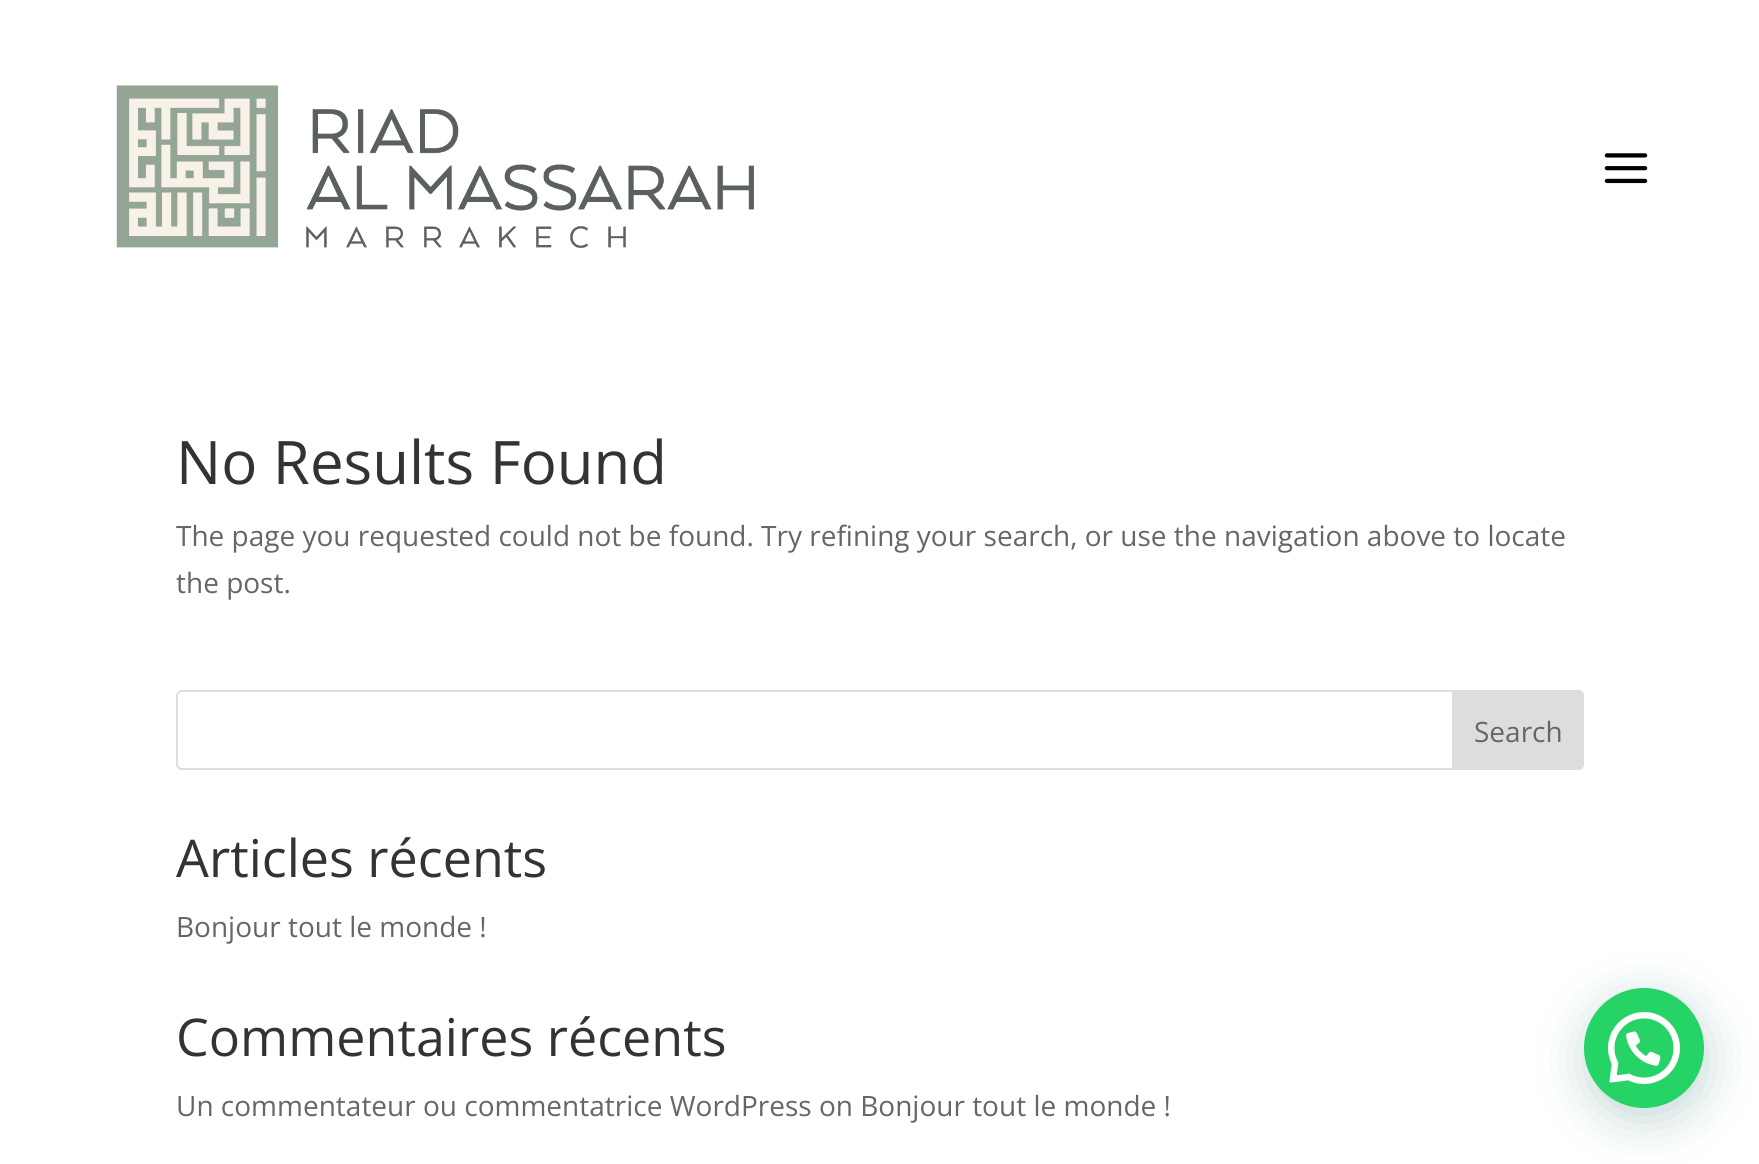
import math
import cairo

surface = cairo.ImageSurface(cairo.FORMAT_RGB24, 1759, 1164)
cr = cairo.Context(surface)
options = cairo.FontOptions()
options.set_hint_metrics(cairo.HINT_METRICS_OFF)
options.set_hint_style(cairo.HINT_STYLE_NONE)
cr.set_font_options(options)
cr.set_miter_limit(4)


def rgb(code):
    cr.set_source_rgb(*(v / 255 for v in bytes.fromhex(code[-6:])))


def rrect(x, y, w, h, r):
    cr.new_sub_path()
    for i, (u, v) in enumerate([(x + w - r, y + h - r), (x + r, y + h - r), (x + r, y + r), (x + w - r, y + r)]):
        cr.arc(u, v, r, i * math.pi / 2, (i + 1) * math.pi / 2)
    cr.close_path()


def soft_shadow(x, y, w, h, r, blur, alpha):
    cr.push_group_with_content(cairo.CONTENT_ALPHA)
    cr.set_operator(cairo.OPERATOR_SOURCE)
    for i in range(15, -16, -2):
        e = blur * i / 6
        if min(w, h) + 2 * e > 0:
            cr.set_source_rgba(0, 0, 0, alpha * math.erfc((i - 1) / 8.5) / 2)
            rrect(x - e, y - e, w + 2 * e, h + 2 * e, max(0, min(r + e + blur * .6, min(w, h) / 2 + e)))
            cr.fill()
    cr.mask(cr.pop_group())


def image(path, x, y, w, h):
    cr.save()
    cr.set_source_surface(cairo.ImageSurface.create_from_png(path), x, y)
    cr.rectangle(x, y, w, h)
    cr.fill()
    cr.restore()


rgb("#ffffff")
cr.paint()
image("img/1.png", 116, 85, 638, 163)
image("img/2.png", 1604, 153, 44, 31)
rrect(177, 691, 1406, 78, 5)
rgb("#dddddd")
cr.stroke()
cr.new_path()
cr.move_to(1453, 691)
cr.line_to(1578, 691)
cr.curve_to(1581, 691, 1583, 693, 1583, 696)
cr.line_to(1583, 764)
cr.curve_to(1583, 767, 1581, 769, 1578, 769)
cr.line_to(1453, 769)
cr.close_path()
cr.fill_preserve()
cr.stroke()
rgb("#075e54")
soft_shadow(1586, 1000, 120, 120, 60, 24, 0.24)
rgb("#25d366")
cr.arc(1644, 1048, 60, 0, 2 * math.pi)
cr.fill()
image("img/3.png", 1608, 1012, 72, 72)
cr.select_font_face("Open Sans")
cr.set_font_size(60)
rgb("#333333")
cr.move_to(176, 484)
cr.show_text("No Results Found")
cr.set_font_size(28)
rgb("#666666")
for x, y, s in [
    (176, 546, "The page you requested could not be found. Try refining your search, or use the navigation above to locate"),
    (176, 593, "the post."),
    (1474, 742, "Search"),
]:
    cr.move_to(x, y)
    cr.show_text(s)
cr.set_font_size(52)
rgb("#333333")
cr.move_to(176, 877)
cr.show_text("Articles récents")
cr.set_font_size(28)
rgb("#666666")
cr.move_to(176, 937)
cr.show_text("Bonjour tout le monde !")
cr.set_font_size(52)
rgb("#333333")
cr.move_to(176, 1056)
cr.show_text("Commentaires récents")
cr.set_font_size(28)
rgb("#666666")
cr.move_to(176, 1116)
cr.show_text("Un commentateur ou commentatrice WordPress on Bonjour tout le monde !")
surface.write_to_png("page.png")
